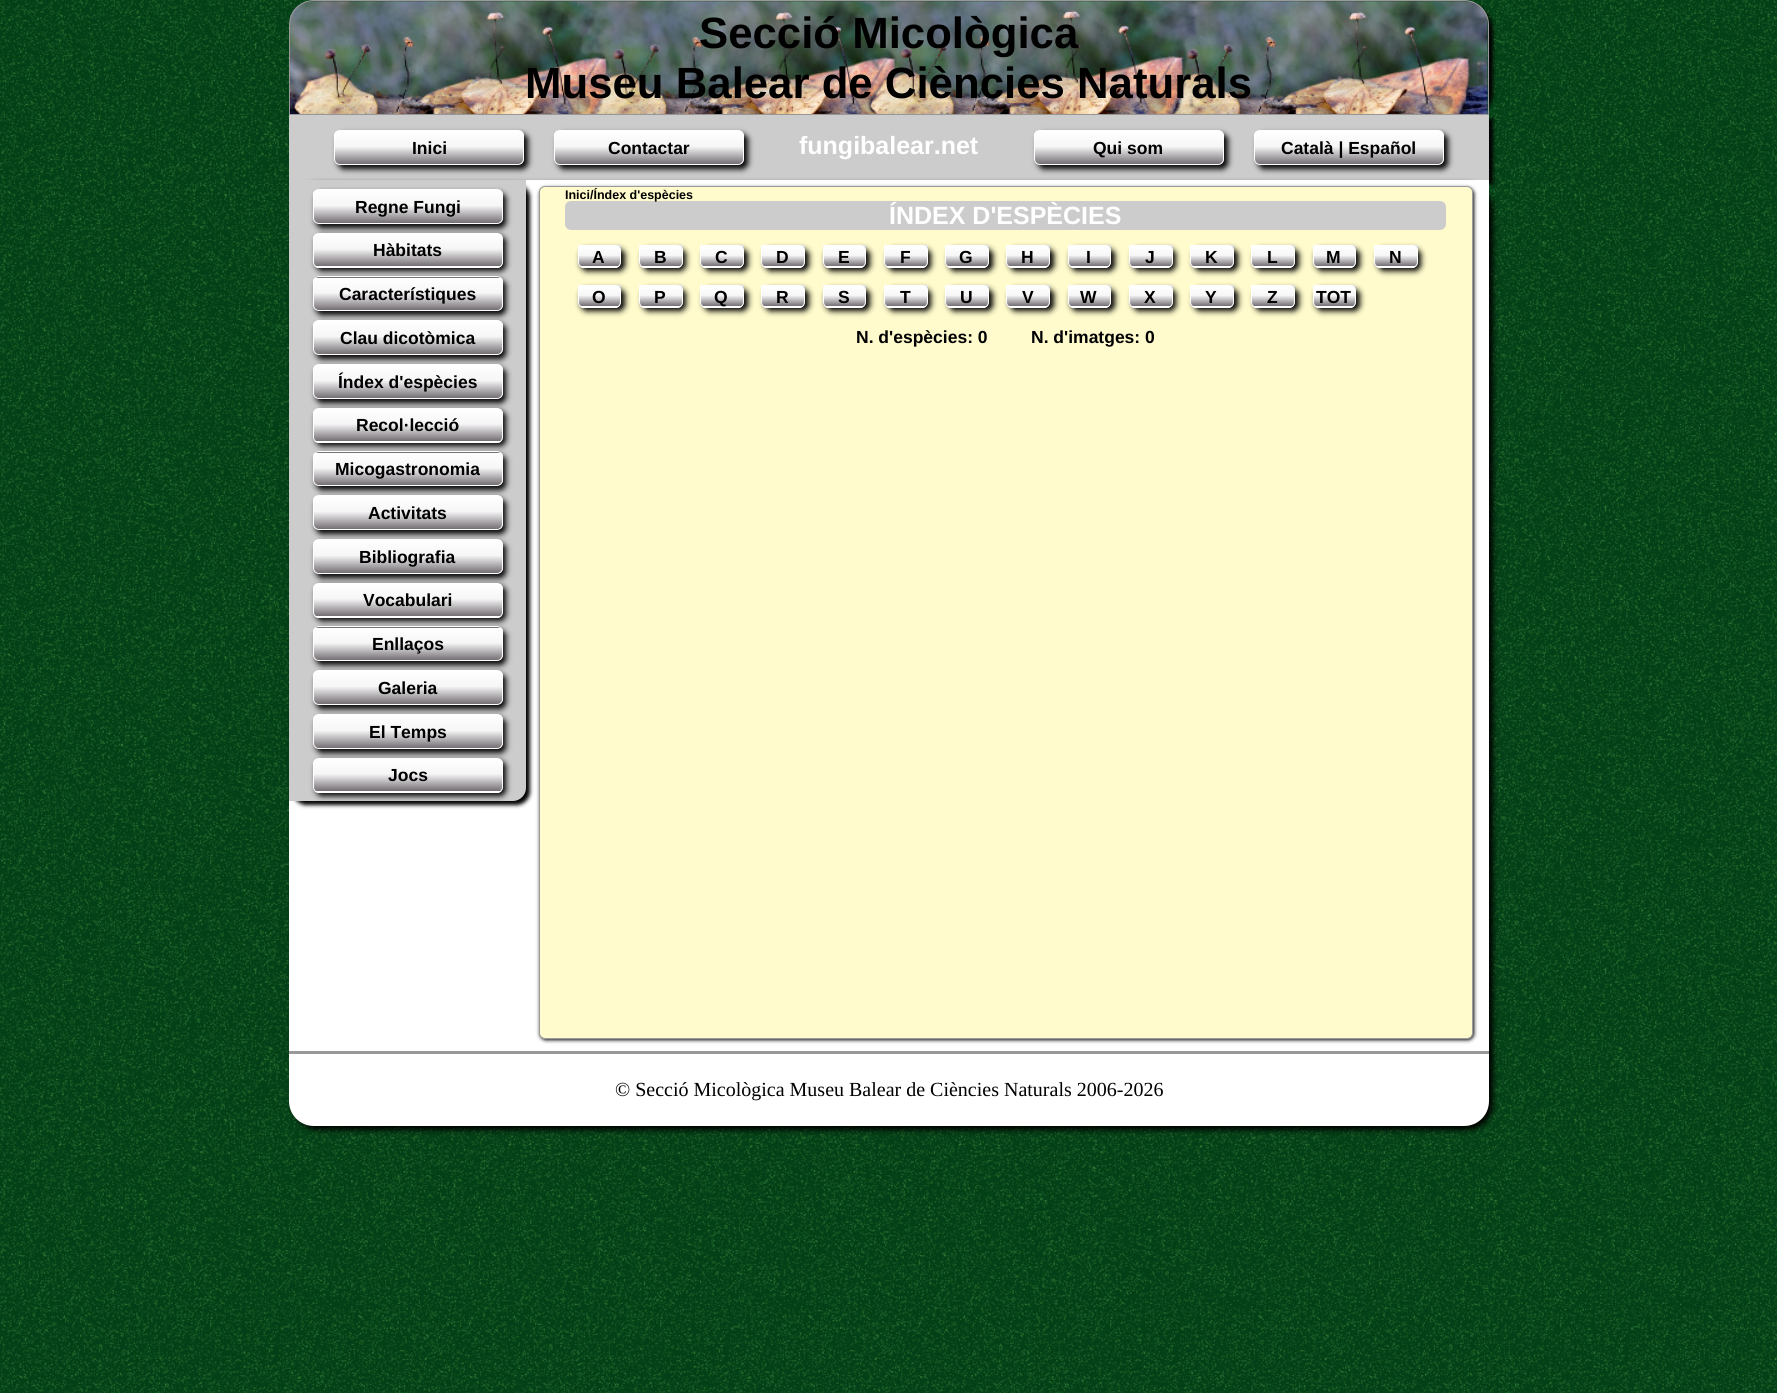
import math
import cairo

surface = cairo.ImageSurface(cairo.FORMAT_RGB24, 1777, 1393)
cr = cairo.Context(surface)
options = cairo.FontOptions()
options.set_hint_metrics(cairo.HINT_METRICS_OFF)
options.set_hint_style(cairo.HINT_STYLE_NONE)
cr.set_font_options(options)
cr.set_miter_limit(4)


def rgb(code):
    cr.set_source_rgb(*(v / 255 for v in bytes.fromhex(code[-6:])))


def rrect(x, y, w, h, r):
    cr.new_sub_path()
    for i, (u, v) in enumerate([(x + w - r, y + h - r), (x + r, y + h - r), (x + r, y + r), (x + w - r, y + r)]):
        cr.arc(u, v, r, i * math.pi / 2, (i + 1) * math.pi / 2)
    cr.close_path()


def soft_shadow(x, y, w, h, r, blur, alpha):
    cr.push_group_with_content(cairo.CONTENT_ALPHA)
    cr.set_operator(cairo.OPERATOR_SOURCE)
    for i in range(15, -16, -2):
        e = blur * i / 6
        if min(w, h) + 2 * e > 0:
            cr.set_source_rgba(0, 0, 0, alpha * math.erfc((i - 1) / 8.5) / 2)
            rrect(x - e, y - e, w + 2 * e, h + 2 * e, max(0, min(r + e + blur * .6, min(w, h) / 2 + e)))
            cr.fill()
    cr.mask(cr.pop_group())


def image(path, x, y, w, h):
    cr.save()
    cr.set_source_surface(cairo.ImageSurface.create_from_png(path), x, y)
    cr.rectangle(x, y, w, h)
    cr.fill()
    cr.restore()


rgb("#ffffff")
cr.paint()
image("img/1.png", 0, 0, 1777, 1393)
cr.save()
cr.set_fill_rule(cairo.FILL_RULE_EVEN_ODD)
cr.new_path()
cr.move_to(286, 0)
cr.line_to(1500, 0)
cr.line_to(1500, 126)
cr.line_to(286, 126)
cr.close_path()
cr.move_to(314, 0)
cr.line_to(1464, 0)
cr.curve_to(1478, 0, 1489, 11, 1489, 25)
cr.line_to(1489, 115)
cr.line_to(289, 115)
cr.line_to(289, 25)
cr.curve_to(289, 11, 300, 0, 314, 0)
cr.close_path()
cr.clip()
rgb("#000000")
soft_shadow(293, 4, 1200, 115, 25, 2, 1)
cr.restore()
image("img/2.png", 290, 1, 1198, 113)
cr.new_path()
cr.move_to(314, 0.5)
cr.line_to(1464, 0.5)
cr.curve_to(1477.5, 0.5, 1488.5, 11.5, 1488.5, 25)
cr.line_to(1488.5, 114.5)
cr.line_to(289.5, 114.5)
cr.line_to(289.5, 25)
cr.curve_to(289.5, 11.5, 300.5, 0.5, 314, 0.5)
cr.close_path()
rgb("#999999")
cr.set_line_width(1)
cr.stroke()
rgb("#000000")
soft_shadow(293, 119, 1200, 65, 0, 2, 1)
rgb("#cccccc")
cr.rectangle(289, 115, 1200, 65)
cr.fill()
rgb("#000000")
soft_shadow(338, 134, 190, 35, 6, 3, 1)
cr.save()
rrect(334, 130, 190, 35, 6)
cr.clip()
gradient = cairo.LinearGradient(429, 131, 429, 164)
gradient.add_color_stop_rgba(0, 1, 1, 1, 1)
gradient.add_color_stop_rgba(0.31, 0.976, 0.976, 0.976, 1)
gradient.add_color_stop_rgba(0.47, 0.965, 0.965, 0.965, 1)
gradient.add_color_stop_rgba(1, 0.451, 0.431, 0.451, 1)
cr.set_source(gradient)
cr.rectangle(334, 131, 190, 33)
cr.fill()
cr.restore()
rrect(334.5, 130.5, 189, 34, 5.5)
rgb("#ffffff")
cr.stroke()
rgb("#000000")
soft_shadow(558, 134, 190, 35, 6, 3, 1)
cr.save()
rrect(554, 130, 190, 35, 6)
cr.clip()
gradient = cairo.LinearGradient(649, 131, 649, 164)
gradient.add_color_stop_rgba(0, 1, 1, 1, 1)
gradient.add_color_stop_rgba(0.31, 0.976, 0.976, 0.976, 1)
gradient.add_color_stop_rgba(0.47, 0.965, 0.965, 0.965, 1)
gradient.add_color_stop_rgba(1, 0.451, 0.431, 0.451, 1)
cr.set_source(gradient)
cr.rectangle(554, 131, 190, 33)
cr.fill()
cr.restore()
rrect(554.5, 130.5, 189, 34, 5.5)
rgb("#ffffff")
cr.stroke()
rgb("#000000")
soft_shadow(1038, 134, 190, 35, 6, 3, 1)
cr.save()
rrect(1034, 130, 190, 35, 6)
cr.clip()
gradient = cairo.LinearGradient(1129, 131, 1129, 164)
gradient.add_color_stop_rgba(0, 1, 1, 1, 1)
gradient.add_color_stop_rgba(0.31, 0.976, 0.976, 0.976, 1)
gradient.add_color_stop_rgba(0.47, 0.965, 0.965, 0.965, 1)
gradient.add_color_stop_rgba(1, 0.451, 0.431, 0.451, 1)
cr.set_source(gradient)
cr.rectangle(1034, 131, 190, 33)
cr.fill()
cr.restore()
rrect(1034.5, 130.5, 189, 34, 5.5)
rgb("#ffffff")
cr.stroke()
rgb("#000000")
soft_shadow(1258, 134, 190, 35, 6, 3, 1)
cr.save()
rrect(1254, 130, 190, 35, 6)
cr.clip()
gradient = cairo.LinearGradient(1349, 131, 1349, 164)
gradient.add_color_stop_rgba(0, 1, 1, 1, 1)
gradient.add_color_stop_rgba(0.31, 0.976, 0.976, 0.976, 1)
gradient.add_color_stop_rgba(0.47, 0.965, 0.965, 0.965, 1)
gradient.add_color_stop_rgba(1, 0.451, 0.431, 0.451, 1)
cr.set_source(gradient)
cr.rectangle(1254, 131, 190, 33)
cr.fill()
cr.restore()
rrect(1254.5, 130.5, 189, 34, 5.5)
rgb("#ffffff")
cr.stroke()
rgb("#000000")
soft_shadow(293, 184, 1200, 946, 25, 3, 1)
rgb("#ffffff")
cr.new_path()
cr.move_to(289, 180)
cr.line_to(1489, 180)
cr.line_to(1489, 1101)
cr.curve_to(1489, 1115, 1478, 1126, 1464, 1126)
cr.line_to(314, 1126)
cr.curve_to(300, 1126, 289, 1115, 289, 1101)
cr.close_path()
cr.fill()
rgb("#000000")
soft_shadow(293, 184, 237, 621, 13, 2, 1)
rgb("#cccccc")
cr.new_path()
cr.move_to(289, 180)
cr.line_to(526, 180)
cr.line_to(526, 788)
cr.curve_to(526, 795, 520, 801, 513, 801)
cr.line_to(289, 801)
cr.close_path()
cr.fill()
rgb("#000000")
soft_shadow(316, 193, 190, 35, 6, 3, 1)
cr.save()
rrect(313, 189, 190, 35, 6)
cr.clip()
gradient = cairo.LinearGradient(408, 190, 408, 223)
gradient.add_color_stop_rgba(0, 1, 1, 1, 1)
gradient.add_color_stop_rgba(0.31, 0.976, 0.976, 0.976, 1)
gradient.add_color_stop_rgba(0.47, 0.965, 0.965, 0.965, 1)
gradient.add_color_stop_rgba(1, 0.451, 0.431, 0.451, 1)
cr.set_source(gradient)
cr.rectangle(313, 190, 190, 33)
cr.fill()
cr.restore()
rrect(313.5, 189.5, 189, 34, 5.5)
rgb("#ffffff")
cr.stroke()
rgb("#000000")
soft_shadow(316, 236, 190, 35, 6, 3, 1)
cr.save()
rrect(313, 233, 190, 35, 6)
cr.clip()
gradient = cairo.LinearGradient(408, 234, 408, 266)
gradient.add_color_stop_rgba(0, 1, 1, 1, 1)
gradient.add_color_stop_rgba(0.31, 0.976, 0.976, 0.976, 1)
gradient.add_color_stop_rgba(0.47, 0.965, 0.965, 0.965, 1)
gradient.add_color_stop_rgba(1, 0.451, 0.431, 0.451, 1)
cr.set_source(gradient)
cr.rectangle(313, 234, 190, 32)
cr.fill()
gradient = cairo.LinearGradient(408, 266, 408, 299)
gradient.add_color_stop_rgba(0, 1, 1, 1, 1)
gradient.add_color_stop_rgba(0.31, 0.976, 0.976, 0.976, 1)
gradient.add_color_stop_rgba(0.47, 0.965, 0.965, 0.965, 1)
gradient.add_color_stop_rgba(1, 0.451, 0.431, 0.451, 1)
cr.set_source(gradient)
cr.rectangle(313, 266, 190, 2)
cr.fill()
cr.restore()
rrect(313.5, 233.5, 189, 34, 5.5)
rgb("#ffffff")
cr.stroke()
rgb("#000000")
soft_shadow(316, 280, 190, 35, 6, 3, 1)
cr.save()
rrect(313, 276, 190, 35, 6)
cr.clip()
gradient = cairo.LinearGradient(408, 245, 408, 278)
gradient.add_color_stop_rgba(0, 1, 1, 1, 1)
gradient.add_color_stop_rgba(0.31, 0.976, 0.976, 0.976, 1)
gradient.add_color_stop_rgba(0.47, 0.965, 0.965, 0.965, 1)
gradient.add_color_stop_rgba(1, 0.451, 0.431, 0.451, 1)
cr.set_source(gradient)
cr.rectangle(313, 276, 190, 2)
cr.fill()
gradient = cairo.LinearGradient(408, 278, 408, 310)
gradient.add_color_stop_rgba(0, 1, 1, 1, 1)
gradient.add_color_stop_rgba(0.31, 0.976, 0.976, 0.976, 1)
gradient.add_color_stop_rgba(0.47, 0.965, 0.965, 0.965, 1)
gradient.add_color_stop_rgba(1, 0.451, 0.431, 0.451, 1)
cr.set_source(gradient)
cr.rectangle(313, 278, 190, 32)
cr.fill()
cr.restore()
rrect(313.5, 276.5, 189, 34, 5.5)
rgb("#ffffff")
cr.stroke()
rgb("#000000")
soft_shadow(316, 324, 190, 35, 6, 3, 1)
cr.save()
rrect(313, 320, 190, 35, 6)
cr.clip()
gradient = cairo.LinearGradient(408, 321, 408, 354)
gradient.add_color_stop_rgba(0, 1, 1, 1, 1)
gradient.add_color_stop_rgba(0.31, 0.976, 0.976, 0.976, 1)
gradient.add_color_stop_rgba(0.47, 0.965, 0.965, 0.965, 1)
gradient.add_color_stop_rgba(1, 0.451, 0.431, 0.451, 1)
cr.set_source(gradient)
cr.rectangle(313, 321, 190, 33)
cr.fill()
cr.restore()
rrect(313.5, 320.5, 189, 34, 5.5)
rgb("#ffffff")
cr.stroke()
rgb("#000000")
soft_shadow(316, 368, 190, 35, 6, 3, 1)
cr.save()
rrect(313, 364, 190, 35, 6)
cr.clip()
gradient = cairo.LinearGradient(408, 365, 408, 398)
gradient.add_color_stop_rgba(0, 1, 1, 1, 1)
gradient.add_color_stop_rgba(0.31, 0.976, 0.976, 0.976, 1)
gradient.add_color_stop_rgba(0.47, 0.965, 0.965, 0.965, 1)
gradient.add_color_stop_rgba(1, 0.451, 0.431, 0.451, 1)
cr.set_source(gradient)
cr.rectangle(313, 365, 190, 33)
cr.fill()
cr.restore()
rrect(313.5, 364.5, 189, 34, 5.5)
rgb("#ffffff")
cr.stroke()
rgb("#000000")
soft_shadow(316, 411, 190, 35, 6, 3, 1)
cr.save()
rrect(313, 408, 190, 35, 6)
cr.clip()
gradient = cairo.LinearGradient(408, 409, 408, 441)
gradient.add_color_stop_rgba(0, 1, 1, 1, 1)
gradient.add_color_stop_rgba(0.31, 0.976, 0.976, 0.976, 1)
gradient.add_color_stop_rgba(0.47, 0.965, 0.965, 0.965, 1)
gradient.add_color_stop_rgba(1, 0.451, 0.431, 0.451, 1)
cr.set_source(gradient)
cr.rectangle(313, 409, 190, 32)
cr.fill()
gradient = cairo.LinearGradient(408, 441, 408, 474)
gradient.add_color_stop_rgba(0, 1, 1, 1, 1)
gradient.add_color_stop_rgba(0.31, 0.976, 0.976, 0.976, 1)
gradient.add_color_stop_rgba(0.47, 0.965, 0.965, 0.965, 1)
gradient.add_color_stop_rgba(1, 0.451, 0.431, 0.451, 1)
cr.set_source(gradient)
cr.rectangle(313, 441, 190, 2)
cr.fill()
cr.restore()
rrect(313.5, 408.5, 189, 34, 5.5)
rgb("#ffffff")
cr.stroke()
rgb("#000000")
soft_shadow(316, 455, 190, 35, 6, 3, 1)
cr.save()
rrect(313, 451, 190, 35, 6)
cr.clip()
gradient = cairo.LinearGradient(408, 420, 408, 453)
gradient.add_color_stop_rgba(0, 1, 1, 1, 1)
gradient.add_color_stop_rgba(0.31, 0.976, 0.976, 0.976, 1)
gradient.add_color_stop_rgba(0.47, 0.965, 0.965, 0.965, 1)
gradient.add_color_stop_rgba(1, 0.451, 0.431, 0.451, 1)
cr.set_source(gradient)
cr.rectangle(313, 451, 190, 2)
cr.fill()
gradient = cairo.LinearGradient(408, 453, 408, 485)
gradient.add_color_stop_rgba(0, 1, 1, 1, 1)
gradient.add_color_stop_rgba(0.31, 0.976, 0.976, 0.976, 1)
gradient.add_color_stop_rgba(0.47, 0.965, 0.965, 0.965, 1)
gradient.add_color_stop_rgba(1, 0.451, 0.431, 0.451, 1)
cr.set_source(gradient)
cr.rectangle(313, 453, 190, 32)
cr.fill()
cr.restore()
rrect(313.5, 451.5, 189, 34, 5.5)
rgb("#ffffff")
cr.stroke()
rgb("#000000")
soft_shadow(316, 499, 190, 35, 6, 3, 1)
cr.save()
rrect(313, 495, 190, 35, 6)
cr.clip()
gradient = cairo.LinearGradient(408, 496, 408, 529)
gradient.add_color_stop_rgba(0, 1, 1, 1, 1)
gradient.add_color_stop_rgba(0.31, 0.976, 0.976, 0.976, 1)
gradient.add_color_stop_rgba(0.47, 0.965, 0.965, 0.965, 1)
gradient.add_color_stop_rgba(1, 0.451, 0.431, 0.451, 1)
cr.set_source(gradient)
cr.rectangle(313, 496, 190, 33)
cr.fill()
cr.restore()
rrect(313.5, 495.5, 189, 34, 5.5)
rgb("#ffffff")
cr.stroke()
rgb("#000000")
soft_shadow(316, 543, 190, 35, 6, 3, 1)
cr.save()
rrect(313, 539, 190, 35, 6)
cr.clip()
gradient = cairo.LinearGradient(408, 540, 408, 573)
gradient.add_color_stop_rgba(0, 1, 1, 1, 1)
gradient.add_color_stop_rgba(0.31, 0.976, 0.976, 0.976, 1)
gradient.add_color_stop_rgba(0.47, 0.965, 0.965, 0.965, 1)
gradient.add_color_stop_rgba(1, 0.451, 0.431, 0.451, 1)
cr.set_source(gradient)
cr.rectangle(313, 540, 190, 33)
cr.fill()
cr.restore()
rrect(313.5, 539.5, 189, 34, 5.5)
rgb("#ffffff")
cr.stroke()
rgb("#000000")
soft_shadow(316, 586, 190, 35, 6, 3, 1)
cr.save()
rrect(313, 583, 190, 35, 6)
cr.clip()
gradient = cairo.LinearGradient(408, 584, 408, 616)
gradient.add_color_stop_rgba(0, 1, 1, 1, 1)
gradient.add_color_stop_rgba(0.31, 0.976, 0.976, 0.976, 1)
gradient.add_color_stop_rgba(0.47, 0.965, 0.965, 0.965, 1)
gradient.add_color_stop_rgba(1, 0.451, 0.431, 0.451, 1)
cr.set_source(gradient)
cr.rectangle(313, 584, 190, 32)
cr.fill()
gradient = cairo.LinearGradient(408, 616, 408, 649)
gradient.add_color_stop_rgba(0, 1, 1, 1, 1)
gradient.add_color_stop_rgba(0.31, 0.976, 0.976, 0.976, 1)
gradient.add_color_stop_rgba(0.47, 0.965, 0.965, 0.965, 1)
gradient.add_color_stop_rgba(1, 0.451, 0.431, 0.451, 1)
cr.set_source(gradient)
cr.rectangle(313, 616, 190, 2)
cr.fill()
cr.restore()
rrect(313.5, 583.5, 189, 34, 5.5)
rgb("#ffffff")
cr.stroke()
rgb("#000000")
soft_shadow(316, 630, 190, 35, 6, 3, 1)
cr.save()
rrect(313, 626, 190, 35, 6)
cr.clip()
gradient = cairo.LinearGradient(408, 595, 408, 628)
gradient.add_color_stop_rgba(0, 1, 1, 1, 1)
gradient.add_color_stop_rgba(0.31, 0.976, 0.976, 0.976, 1)
gradient.add_color_stop_rgba(0.47, 0.965, 0.965, 0.965, 1)
gradient.add_color_stop_rgba(1, 0.451, 0.431, 0.451, 1)
cr.set_source(gradient)
cr.rectangle(313, 626, 190, 2)
cr.fill()
gradient = cairo.LinearGradient(408, 628, 408, 660)
gradient.add_color_stop_rgba(0, 1, 1, 1, 1)
gradient.add_color_stop_rgba(0.31, 0.976, 0.976, 0.976, 1)
gradient.add_color_stop_rgba(0.47, 0.965, 0.965, 0.965, 1)
gradient.add_color_stop_rgba(1, 0.451, 0.431, 0.451, 1)
cr.set_source(gradient)
cr.rectangle(313, 628, 190, 32)
cr.fill()
cr.restore()
rrect(313.5, 626.5, 189, 34, 5.5)
rgb("#ffffff")
cr.stroke()
rgb("#000000")
soft_shadow(316, 674, 190, 35, 6, 3, 1)
cr.save()
rrect(313, 670, 190, 35, 6)
cr.clip()
gradient = cairo.LinearGradient(408, 671, 408, 704)
gradient.add_color_stop_rgba(0, 1, 1, 1, 1)
gradient.add_color_stop_rgba(0.31, 0.976, 0.976, 0.976, 1)
gradient.add_color_stop_rgba(0.47, 0.965, 0.965, 0.965, 1)
gradient.add_color_stop_rgba(1, 0.451, 0.431, 0.451, 1)
cr.set_source(gradient)
cr.rectangle(313, 671, 190, 33)
cr.fill()
cr.restore()
rrect(313.5, 670.5, 189, 34, 5.5)
rgb("#ffffff")
cr.stroke()
rgb("#000000")
soft_shadow(316, 718, 190, 35, 6, 3, 1)
cr.save()
rrect(313, 714, 190, 35, 6)
cr.clip()
gradient = cairo.LinearGradient(408, 715, 408, 748)
gradient.add_color_stop_rgba(0, 1, 1, 1, 1)
gradient.add_color_stop_rgba(0.31, 0.976, 0.976, 0.976, 1)
gradient.add_color_stop_rgba(0.47, 0.965, 0.965, 0.965, 1)
gradient.add_color_stop_rgba(1, 0.451, 0.431, 0.451, 1)
cr.set_source(gradient)
cr.rectangle(313, 715, 190, 33)
cr.fill()
cr.restore()
rrect(313.5, 714.5, 189, 34, 5.5)
rgb("#ffffff")
cr.stroke()
rgb("#000000")
soft_shadow(316, 761, 190, 35, 6, 3, 1)
cr.save()
rrect(313, 758, 190, 35, 6)
cr.clip()
gradient = cairo.LinearGradient(408, 759, 408, 791)
gradient.add_color_stop_rgba(0, 1, 1, 1, 1)
gradient.add_color_stop_rgba(0.31, 0.976, 0.976, 0.976, 1)
gradient.add_color_stop_rgba(0.47, 0.965, 0.965, 0.965, 1)
gradient.add_color_stop_rgba(1, 0.451, 0.431, 0.451, 1)
cr.set_source(gradient)
cr.rectangle(313, 759, 190, 32)
cr.fill()
gradient = cairo.LinearGradient(408, 791, 408, 824)
gradient.add_color_stop_rgba(0, 1, 1, 1, 1)
gradient.add_color_stop_rgba(0.31, 0.976, 0.976, 0.976, 1)
gradient.add_color_stop_rgba(0.47, 0.965, 0.965, 0.965, 1)
gradient.add_color_stop_rgba(1, 0.451, 0.431, 0.451, 1)
cr.set_source(gradient)
cr.rectangle(313, 791, 190, 2)
cr.fill()
cr.restore()
rrect(313.5, 758.5, 189, 34, 5.5)
rgb("#ffffff")
cr.stroke()
rgb("#000000")
soft_shadow(540, 188, 934, 852, 6, 2, 1)
rgb("#fffbcc")
rrect(539.5, 186.5, 933, 852, 5.5)
cr.fill_preserve()
rgb("#999999")
cr.stroke()
rgb("#cccccc")
rrect(565, 201, 881, 29, 6)
cr.fill()
rgb("#ffffff")
cr.new_path()
cr.move_to(578, 245)
cr.line_to(621, 245)
cr.line_to(621, 246.5)
cr.curve_to(621, 258.5, 611.5, 268, 599.5, 268)
cr.curve_to(587.5, 268, 578, 258.5, 578, 246.5)
cr.close_path()
cr.fill()
rgb("#000000")
soft_shadow(581, 249, 44, 22, 6, 3, 1)
cr.save()
rrect(578, 245, 43, 23, 6)
cr.clip()
gradient = cairo.LinearGradient(599, 246, 599, 266)
gradient.add_color_stop_rgba(0, 1, 1, 1, 1)
gradient.add_color_stop_rgba(0.31, 0.976, 0.976, 0.976, 1)
gradient.add_color_stop_rgba(0.47, 0.965, 0.965, 0.965, 1)
gradient.add_color_stop_rgba(1, 0.451, 0.431, 0.451, 1)
cr.set_source(gradient)
cr.rectangle(578, 246, 43, 20)
cr.fill()
gradient = cairo.LinearGradient(599, 266, 599, 286)
gradient.add_color_stop_rgba(0, 1, 1, 1, 1)
gradient.add_color_stop_rgba(0.31, 0.976, 0.976, 0.976, 1)
gradient.add_color_stop_rgba(0.47, 0.965, 0.965, 0.965, 1)
gradient.add_color_stop_rgba(1, 0.451, 0.431, 0.451, 1)
cr.set_source(gradient)
cr.rectangle(578, 266, 43, 2)
cr.fill()
cr.restore()
rrect(578.5, 245.5, 42, 22, 5.5)
rgb("#ffffff")
cr.stroke()
cr.new_path()
cr.move_to(639, 245)
cr.line_to(683, 245)
cr.line_to(683, 246)
cr.curve_to(683, 258, 673, 268, 661, 268)
cr.curve_to(649, 268, 639, 258, 639, 246)
cr.close_path()
cr.fill()
rgb("#000000")
soft_shadow(643, 249, 43, 22, 6, 3, 1)
cr.save()
rrect(639, 245, 44, 23, 6)
cr.clip()
gradient = cairo.LinearGradient(661, 246, 661, 266)
gradient.add_color_stop_rgba(0, 1, 1, 1, 1)
gradient.add_color_stop_rgba(0.31, 0.976, 0.976, 0.976, 1)
gradient.add_color_stop_rgba(0.47, 0.965, 0.965, 0.965, 1)
gradient.add_color_stop_rgba(1, 0.451, 0.431, 0.451, 1)
cr.set_source(gradient)
cr.rectangle(639, 246, 44, 20)
cr.fill()
gradient = cairo.LinearGradient(661, 266, 661, 286)
gradient.add_color_stop_rgba(0, 1, 1, 1, 1)
gradient.add_color_stop_rgba(0.31, 0.976, 0.976, 0.976, 1)
gradient.add_color_stop_rgba(0.47, 0.965, 0.965, 0.965, 1)
gradient.add_color_stop_rgba(1, 0.451, 0.431, 0.451, 1)
cr.set_source(gradient)
cr.rectangle(639, 266, 44, 2)
cr.fill()
cr.restore()
rrect(639.5, 245.5, 43, 22, 5.5)
rgb("#ffffff")
cr.stroke()
cr.new_path()
cr.move_to(700, 245)
cr.line_to(744, 245)
cr.line_to(744, 246)
cr.curve_to(744, 258, 734, 268, 722, 268)
cr.curve_to(710, 268, 700, 258, 700, 246)
cr.close_path()
cr.fill()
rgb("#000000")
soft_shadow(704, 249, 44, 22, 6, 3, 1)
cr.save()
rrect(700, 245, 44, 23, 6)
cr.clip()
gradient = cairo.LinearGradient(722, 246, 722, 266)
gradient.add_color_stop_rgba(0, 1, 1, 1, 1)
gradient.add_color_stop_rgba(0.31, 0.976, 0.976, 0.976, 1)
gradient.add_color_stop_rgba(0.47, 0.965, 0.965, 0.965, 1)
gradient.add_color_stop_rgba(1, 0.451, 0.431, 0.451, 1)
cr.set_source(gradient)
cr.rectangle(700, 246, 44, 20)
cr.fill()
gradient = cairo.LinearGradient(722, 266, 722, 286)
gradient.add_color_stop_rgba(0, 1, 1, 1, 1)
gradient.add_color_stop_rgba(0.31, 0.976, 0.976, 0.976, 1)
gradient.add_color_stop_rgba(0.47, 0.965, 0.965, 0.965, 1)
gradient.add_color_stop_rgba(1, 0.451, 0.431, 0.451, 1)
cr.set_source(gradient)
cr.rectangle(700, 266, 44, 2)
cr.fill()
cr.restore()
rrect(700.5, 245.5, 43, 22, 5.5)
rgb("#ffffff")
cr.stroke()
cr.new_path()
cr.move_to(761, 245)
cr.line_to(805, 245)
cr.line_to(805, 246)
cr.curve_to(805, 258, 795, 268, 783, 268)
cr.curve_to(771, 268, 761, 258, 761, 246)
cr.close_path()
cr.fill()
rgb("#000000")
soft_shadow(765, 249, 44, 22, 6, 3, 1)
cr.save()
rrect(761, 245, 44, 23, 6)
cr.clip()
gradient = cairo.LinearGradient(783, 246, 783, 266)
gradient.add_color_stop_rgba(0, 1, 1, 1, 1)
gradient.add_color_stop_rgba(0.31, 0.976, 0.976, 0.976, 1)
gradient.add_color_stop_rgba(0.47, 0.965, 0.965, 0.965, 1)
gradient.add_color_stop_rgba(1, 0.451, 0.431, 0.451, 1)
cr.set_source(gradient)
cr.rectangle(761, 246, 44, 20)
cr.fill()
gradient = cairo.LinearGradient(783, 266, 783, 286)
gradient.add_color_stop_rgba(0, 1, 1, 1, 1)
gradient.add_color_stop_rgba(0.31, 0.976, 0.976, 0.976, 1)
gradient.add_color_stop_rgba(0.47, 0.965, 0.965, 0.965, 1)
gradient.add_color_stop_rgba(1, 0.451, 0.431, 0.451, 1)
cr.set_source(gradient)
cr.rectangle(761, 266, 44, 2)
cr.fill()
cr.restore()
rrect(761.5, 245.5, 43, 22, 5.5)
rgb("#ffffff")
cr.stroke()
cr.new_path()
cr.move_to(823, 245)
cr.line_to(866, 245)
cr.line_to(866, 246.5)
cr.curve_to(866, 258.5, 856.5, 268, 844.5, 268)
cr.curve_to(832.5, 268, 823, 258.5, 823, 246.5)
cr.close_path()
cr.fill()
rgb("#000000")
soft_shadow(826, 249, 44, 22, 6, 3, 1)
cr.save()
rrect(823, 245, 43, 23, 6)
cr.clip()
gradient = cairo.LinearGradient(844, 246, 844, 266)
gradient.add_color_stop_rgba(0, 1, 1, 1, 1)
gradient.add_color_stop_rgba(0.31, 0.976, 0.976, 0.976, 1)
gradient.add_color_stop_rgba(0.47, 0.965, 0.965, 0.965, 1)
gradient.add_color_stop_rgba(1, 0.451, 0.431, 0.451, 1)
cr.set_source(gradient)
cr.rectangle(823, 246, 43, 20)
cr.fill()
gradient = cairo.LinearGradient(844, 266, 844, 286)
gradient.add_color_stop_rgba(0, 1, 1, 1, 1)
gradient.add_color_stop_rgba(0.31, 0.976, 0.976, 0.976, 1)
gradient.add_color_stop_rgba(0.47, 0.965, 0.965, 0.965, 1)
gradient.add_color_stop_rgba(1, 0.451, 0.431, 0.451, 1)
cr.set_source(gradient)
cr.rectangle(823, 266, 43, 2)
cr.fill()
cr.restore()
rrect(823.5, 245.5, 42, 22, 5.5)
rgb("#ffffff")
cr.stroke()
cr.new_path()
cr.move_to(884, 245)
cr.line_to(928, 245)
cr.line_to(928, 246)
cr.curve_to(928, 258, 918, 268, 906, 268)
cr.curve_to(894, 268, 884, 258, 884, 246)
cr.close_path()
cr.fill()
rgb("#000000")
soft_shadow(888, 249, 43, 22, 6, 3, 1)
cr.save()
rrect(884, 245, 44, 23, 6)
cr.clip()
gradient = cairo.LinearGradient(906, 246, 906, 266)
gradient.add_color_stop_rgba(0, 1, 1, 1, 1)
gradient.add_color_stop_rgba(0.31, 0.976, 0.976, 0.976, 1)
gradient.add_color_stop_rgba(0.47, 0.965, 0.965, 0.965, 1)
gradient.add_color_stop_rgba(1, 0.451, 0.431, 0.451, 1)
cr.set_source(gradient)
cr.rectangle(884, 246, 44, 20)
cr.fill()
gradient = cairo.LinearGradient(906, 266, 906, 286)
gradient.add_color_stop_rgba(0, 1, 1, 1, 1)
gradient.add_color_stop_rgba(0.31, 0.976, 0.976, 0.976, 1)
gradient.add_color_stop_rgba(0.47, 0.965, 0.965, 0.965, 1)
gradient.add_color_stop_rgba(1, 0.451, 0.431, 0.451, 1)
cr.set_source(gradient)
cr.rectangle(884, 266, 44, 2)
cr.fill()
cr.restore()
rrect(884.5, 245.5, 43, 22, 5.5)
rgb("#ffffff")
cr.stroke()
cr.new_path()
cr.move_to(945, 245)
cr.line_to(989, 245)
cr.line_to(989, 246)
cr.curve_to(989, 258, 979, 268, 967, 268)
cr.curve_to(955, 268, 945, 258, 945, 246)
cr.close_path()
cr.fill()
rgb("#000000")
soft_shadow(949, 249, 44, 22, 6, 3, 1)
cr.save()
rrect(945, 245, 44, 23, 6)
cr.clip()
gradient = cairo.LinearGradient(967, 246, 967, 266)
gradient.add_color_stop_rgba(0, 1, 1, 1, 1)
gradient.add_color_stop_rgba(0.31, 0.976, 0.976, 0.976, 1)
gradient.add_color_stop_rgba(0.47, 0.965, 0.965, 0.965, 1)
gradient.add_color_stop_rgba(1, 0.451, 0.431, 0.451, 1)
cr.set_source(gradient)
cr.rectangle(945, 246, 44, 20)
cr.fill()
gradient = cairo.LinearGradient(967, 266, 967, 286)
gradient.add_color_stop_rgba(0, 1, 1, 1, 1)
gradient.add_color_stop_rgba(0.31, 0.976, 0.976, 0.976, 1)
gradient.add_color_stop_rgba(0.47, 0.965, 0.965, 0.965, 1)
gradient.add_color_stop_rgba(1, 0.451, 0.431, 0.451, 1)
cr.set_source(gradient)
cr.rectangle(945, 266, 44, 2)
cr.fill()
cr.restore()
rrect(945.5, 245.5, 43, 22, 5.5)
rgb("#ffffff")
cr.stroke()
cr.new_path()
cr.move_to(1006, 245)
cr.line_to(1050, 245)
cr.line_to(1050, 246)
cr.curve_to(1050, 258, 1040, 268, 1028, 268)
cr.curve_to(1016, 268, 1006, 258, 1006, 246)
cr.close_path()
cr.fill()
rgb("#000000")
soft_shadow(1010, 249, 44, 22, 6, 3, 1)
cr.save()
rrect(1006, 245, 44, 23, 6)
cr.clip()
gradient = cairo.LinearGradient(1028, 246, 1028, 266)
gradient.add_color_stop_rgba(0, 1, 1, 1, 1)
gradient.add_color_stop_rgba(0.31, 0.976, 0.976, 0.976, 1)
gradient.add_color_stop_rgba(0.47, 0.965, 0.965, 0.965, 1)
gradient.add_color_stop_rgba(1, 0.451, 0.431, 0.451, 1)
cr.set_source(gradient)
cr.rectangle(1006, 246, 44, 20)
cr.fill()
gradient = cairo.LinearGradient(1028, 266, 1028, 286)
gradient.add_color_stop_rgba(0, 1, 1, 1, 1)
gradient.add_color_stop_rgba(0.31, 0.976, 0.976, 0.976, 1)
gradient.add_color_stop_rgba(0.47, 0.965, 0.965, 0.965, 1)
gradient.add_color_stop_rgba(1, 0.451, 0.431, 0.451, 1)
cr.set_source(gradient)
cr.rectangle(1006, 266, 44, 2)
cr.fill()
cr.restore()
rrect(1006.5, 245.5, 43, 22, 5.5)
rgb("#ffffff")
cr.stroke()
cr.new_path()
cr.move_to(1068, 245)
cr.line_to(1111, 245)
cr.line_to(1111, 246.5)
cr.curve_to(1111, 258.5, 1101.5, 268, 1089.5, 268)
cr.curve_to(1077.5, 268, 1068, 258.5, 1068, 246.5)
cr.close_path()
cr.fill()
rgb("#000000")
soft_shadow(1071, 249, 44, 22, 6, 3, 1)
cr.save()
rrect(1068, 245, 43, 23, 6)
cr.clip()
gradient = cairo.LinearGradient(1089, 246, 1089, 266)
gradient.add_color_stop_rgba(0, 1, 1, 1, 1)
gradient.add_color_stop_rgba(0.31, 0.976, 0.976, 0.976, 1)
gradient.add_color_stop_rgba(0.47, 0.965, 0.965, 0.965, 1)
gradient.add_color_stop_rgba(1, 0.451, 0.431, 0.451, 1)
cr.set_source(gradient)
cr.rectangle(1068, 246, 43, 20)
cr.fill()
gradient = cairo.LinearGradient(1089, 266, 1089, 286)
gradient.add_color_stop_rgba(0, 1, 1, 1, 1)
gradient.add_color_stop_rgba(0.31, 0.976, 0.976, 0.976, 1)
gradient.add_color_stop_rgba(0.47, 0.965, 0.965, 0.965, 1)
gradient.add_color_stop_rgba(1, 0.451, 0.431, 0.451, 1)
cr.set_source(gradient)
cr.rectangle(1068, 266, 43, 2)
cr.fill()
cr.restore()
rrect(1068.5, 245.5, 42, 22, 5.5)
rgb("#ffffff")
cr.stroke()
cr.new_path()
cr.move_to(1129, 245)
cr.line_to(1173, 245)
cr.line_to(1173, 246)
cr.curve_to(1173, 258, 1163, 268, 1151, 268)
cr.curve_to(1139, 268, 1129, 258, 1129, 246)
cr.close_path()
cr.fill()
rgb("#000000")
soft_shadow(1133, 249, 43, 22, 6, 3, 1)
cr.save()
rrect(1129, 245, 44, 23, 6)
cr.clip()
gradient = cairo.LinearGradient(1151, 246, 1151, 266)
gradient.add_color_stop_rgba(0, 1, 1, 1, 1)
gradient.add_color_stop_rgba(0.31, 0.976, 0.976, 0.976, 1)
gradient.add_color_stop_rgba(0.47, 0.965, 0.965, 0.965, 1)
gradient.add_color_stop_rgba(1, 0.451, 0.431, 0.451, 1)
cr.set_source(gradient)
cr.rectangle(1129, 246, 44, 20)
cr.fill()
gradient = cairo.LinearGradient(1151, 266, 1151, 286)
gradient.add_color_stop_rgba(0, 1, 1, 1, 1)
gradient.add_color_stop_rgba(0.31, 0.976, 0.976, 0.976, 1)
gradient.add_color_stop_rgba(0.47, 0.965, 0.965, 0.965, 1)
gradient.add_color_stop_rgba(1, 0.451, 0.431, 0.451, 1)
cr.set_source(gradient)
cr.rectangle(1129, 266, 44, 2)
cr.fill()
cr.restore()
rrect(1129.5, 245.5, 43, 22, 5.5)
rgb("#ffffff")
cr.stroke()
cr.new_path()
cr.move_to(1190, 245)
cr.line_to(1234, 245)
cr.line_to(1234, 246)
cr.curve_to(1234, 258, 1224, 268, 1212, 268)
cr.curve_to(1200, 268, 1190, 258, 1190, 246)
cr.close_path()
cr.fill()
rgb("#000000")
soft_shadow(1194, 249, 44, 22, 6, 3, 1)
cr.save()
rrect(1190, 245, 44, 23, 6)
cr.clip()
gradient = cairo.LinearGradient(1212, 246, 1212, 266)
gradient.add_color_stop_rgba(0, 1, 1, 1, 1)
gradient.add_color_stop_rgba(0.31, 0.976, 0.976, 0.976, 1)
gradient.add_color_stop_rgba(0.47, 0.965, 0.965, 0.965, 1)
gradient.add_color_stop_rgba(1, 0.451, 0.431, 0.451, 1)
cr.set_source(gradient)
cr.rectangle(1190, 246, 44, 20)
cr.fill()
gradient = cairo.LinearGradient(1212, 266, 1212, 286)
gradient.add_color_stop_rgba(0, 1, 1, 1, 1)
gradient.add_color_stop_rgba(0.31, 0.976, 0.976, 0.976, 1)
gradient.add_color_stop_rgba(0.47, 0.965, 0.965, 0.965, 1)
gradient.add_color_stop_rgba(1, 0.451, 0.431, 0.451, 1)
cr.set_source(gradient)
cr.rectangle(1190, 266, 44, 2)
cr.fill()
cr.restore()
rrect(1190.5, 245.5, 43, 22, 5.5)
rgb("#ffffff")
cr.stroke()
cr.new_path()
cr.move_to(1251, 245)
cr.line_to(1295, 245)
cr.line_to(1295, 246)
cr.curve_to(1295, 258, 1285, 268, 1273, 268)
cr.curve_to(1261, 268, 1251, 258, 1251, 246)
cr.close_path()
cr.fill()
rgb("#000000")
soft_shadow(1255, 249, 44, 22, 6, 3, 1)
cr.save()
rrect(1251, 245, 44, 23, 6)
cr.clip()
gradient = cairo.LinearGradient(1273, 246, 1273, 266)
gradient.add_color_stop_rgba(0, 1, 1, 1, 1)
gradient.add_color_stop_rgba(0.31, 0.976, 0.976, 0.976, 1)
gradient.add_color_stop_rgba(0.47, 0.965, 0.965, 0.965, 1)
gradient.add_color_stop_rgba(1, 0.451, 0.431, 0.451, 1)
cr.set_source(gradient)
cr.rectangle(1251, 246, 44, 20)
cr.fill()
gradient = cairo.LinearGradient(1273, 266, 1273, 286)
gradient.add_color_stop_rgba(0, 1, 1, 1, 1)
gradient.add_color_stop_rgba(0.31, 0.976, 0.976, 0.976, 1)
gradient.add_color_stop_rgba(0.47, 0.965, 0.965, 0.965, 1)
gradient.add_color_stop_rgba(1, 0.451, 0.431, 0.451, 1)
cr.set_source(gradient)
cr.rectangle(1251, 266, 44, 2)
cr.fill()
cr.restore()
rrect(1251.5, 245.5, 43, 22, 5.5)
rgb("#ffffff")
cr.stroke()
cr.new_path()
cr.move_to(1313, 245)
cr.line_to(1356, 245)
cr.line_to(1356, 246.5)
cr.curve_to(1356, 258.5, 1346.5, 268, 1334.5, 268)
cr.curve_to(1322.5, 268, 1313, 258.5, 1313, 246.5)
cr.close_path()
cr.fill()
rgb("#000000")
soft_shadow(1316, 249, 44, 22, 6, 3, 1)
cr.save()
rrect(1313, 245, 43, 23, 6)
cr.clip()
gradient = cairo.LinearGradient(1334, 246, 1334, 266)
gradient.add_color_stop_rgba(0, 1, 1, 1, 1)
gradient.add_color_stop_rgba(0.31, 0.976, 0.976, 0.976, 1)
gradient.add_color_stop_rgba(0.47, 0.965, 0.965, 0.965, 1)
gradient.add_color_stop_rgba(1, 0.451, 0.431, 0.451, 1)
cr.set_source(gradient)
cr.rectangle(1313, 246, 43, 20)
cr.fill()
gradient = cairo.LinearGradient(1334, 266, 1334, 286)
gradient.add_color_stop_rgba(0, 1, 1, 1, 1)
gradient.add_color_stop_rgba(0.31, 0.976, 0.976, 0.976, 1)
gradient.add_color_stop_rgba(0.47, 0.965, 0.965, 0.965, 1)
gradient.add_color_stop_rgba(1, 0.451, 0.431, 0.451, 1)
cr.set_source(gradient)
cr.rectangle(1313, 266, 43, 2)
cr.fill()
cr.restore()
rrect(1313.5, 245.5, 42, 22, 5.5)
rgb("#ffffff")
cr.stroke()
cr.new_path()
cr.move_to(1374, 245)
cr.line_to(1418, 245)
cr.line_to(1418, 246)
cr.curve_to(1418, 258, 1408, 268, 1396, 268)
cr.curve_to(1384, 268, 1374, 258, 1374, 246)
cr.close_path()
cr.fill()
rgb("#000000")
soft_shadow(1378, 249, 43, 22, 6, 3, 1)
cr.save()
rrect(1374, 245, 44, 23, 6)
cr.clip()
gradient = cairo.LinearGradient(1396, 246, 1396, 266)
gradient.add_color_stop_rgba(0, 1, 1, 1, 1)
gradient.add_color_stop_rgba(0.31, 0.976, 0.976, 0.976, 1)
gradient.add_color_stop_rgba(0.47, 0.965, 0.965, 0.965, 1)
gradient.add_color_stop_rgba(1, 0.451, 0.431, 0.451, 1)
cr.set_source(gradient)
cr.rectangle(1374, 246, 44, 20)
cr.fill()
gradient = cairo.LinearGradient(1396, 266, 1396, 286)
gradient.add_color_stop_rgba(0, 1, 1, 1, 1)
gradient.add_color_stop_rgba(0.31, 0.976, 0.976, 0.976, 1)
gradient.add_color_stop_rgba(0.47, 0.965, 0.965, 0.965, 1)
gradient.add_color_stop_rgba(1, 0.451, 0.431, 0.451, 1)
cr.set_source(gradient)
cr.rectangle(1374, 266, 44, 2)
cr.fill()
cr.restore()
rrect(1374.5, 245.5, 43, 22, 5.5)
rgb("#ffffff")
cr.stroke()
cr.new_path()
cr.move_to(578, 285)
cr.line_to(621, 285)
cr.line_to(621, 286.5)
cr.curve_to(621, 298.5, 611.5, 308, 599.5, 308)
cr.curve_to(587.5, 308, 578, 298.5, 578, 286.5)
cr.close_path()
cr.fill()
rgb("#000000")
soft_shadow(581, 289, 44, 22, 6, 3, 1)
cr.save()
rrect(578, 285, 43, 23, 6)
cr.clip()
gradient = cairo.LinearGradient(599, 286, 599, 306)
gradient.add_color_stop_rgba(0, 1, 1, 1, 1)
gradient.add_color_stop_rgba(0.31, 0.976, 0.976, 0.976, 1)
gradient.add_color_stop_rgba(0.47, 0.965, 0.965, 0.965, 1)
gradient.add_color_stop_rgba(1, 0.451, 0.431, 0.451, 1)
cr.set_source(gradient)
cr.rectangle(578, 286, 43, 20)
cr.fill()
gradient = cairo.LinearGradient(599, 306, 599, 326)
gradient.add_color_stop_rgba(0, 1, 1, 1, 1)
gradient.add_color_stop_rgba(0.31, 0.976, 0.976, 0.976, 1)
gradient.add_color_stop_rgba(0.47, 0.965, 0.965, 0.965, 1)
gradient.add_color_stop_rgba(1, 0.451, 0.431, 0.451, 1)
cr.set_source(gradient)
cr.rectangle(578, 306, 43, 2)
cr.fill()
cr.restore()
rrect(578.5, 285.5, 42, 22, 5.5)
rgb("#ffffff")
cr.stroke()
cr.new_path()
cr.move_to(639, 285)
cr.line_to(683, 285)
cr.line_to(683, 286)
cr.curve_to(683, 298, 673, 308, 661, 308)
cr.curve_to(649, 308, 639, 298, 639, 286)
cr.close_path()
cr.fill()
rgb("#000000")
soft_shadow(643, 289, 43, 22, 6, 3, 1)
cr.save()
rrect(639, 285, 44, 23, 6)
cr.clip()
gradient = cairo.LinearGradient(661, 286, 661, 306)
gradient.add_color_stop_rgba(0, 1, 1, 1, 1)
gradient.add_color_stop_rgba(0.31, 0.976, 0.976, 0.976, 1)
gradient.add_color_stop_rgba(0.47, 0.965, 0.965, 0.965, 1)
gradient.add_color_stop_rgba(1, 0.451, 0.431, 0.451, 1)
cr.set_source(gradient)
cr.rectangle(639, 286, 44, 20)
cr.fill()
gradient = cairo.LinearGradient(661, 306, 661, 326)
gradient.add_color_stop_rgba(0, 1, 1, 1, 1)
gradient.add_color_stop_rgba(0.31, 0.976, 0.976, 0.976, 1)
gradient.add_color_stop_rgba(0.47, 0.965, 0.965, 0.965, 1)
gradient.add_color_stop_rgba(1, 0.451, 0.431, 0.451, 1)
cr.set_source(gradient)
cr.rectangle(639, 306, 44, 2)
cr.fill()
cr.restore()
rrect(639.5, 285.5, 43, 22, 5.5)
rgb("#ffffff")
cr.stroke()
cr.new_path()
cr.move_to(700, 285)
cr.line_to(744, 285)
cr.line_to(744, 286)
cr.curve_to(744, 298, 734, 308, 722, 308)
cr.curve_to(710, 308, 700, 298, 700, 286)
cr.close_path()
cr.fill()
rgb("#000000")
soft_shadow(704, 289, 44, 22, 6, 3, 1)
cr.save()
rrect(700, 285, 44, 23, 6)
cr.clip()
gradient = cairo.LinearGradient(722, 286, 722, 306)
gradient.add_color_stop_rgba(0, 1, 1, 1, 1)
gradient.add_color_stop_rgba(0.31, 0.976, 0.976, 0.976, 1)
gradient.add_color_stop_rgba(0.47, 0.965, 0.965, 0.965, 1)
gradient.add_color_stop_rgba(1, 0.451, 0.431, 0.451, 1)
cr.set_source(gradient)
cr.rectangle(700, 286, 44, 20)
cr.fill()
gradient = cairo.LinearGradient(722, 306, 722, 326)
gradient.add_color_stop_rgba(0, 1, 1, 1, 1)
gradient.add_color_stop_rgba(0.31, 0.976, 0.976, 0.976, 1)
gradient.add_color_stop_rgba(0.47, 0.965, 0.965, 0.965, 1)
gradient.add_color_stop_rgba(1, 0.451, 0.431, 0.451, 1)
cr.set_source(gradient)
cr.rectangle(700, 306, 44, 2)
cr.fill()
cr.restore()
rrect(700.5, 285.5, 43, 22, 5.5)
rgb("#ffffff")
cr.stroke()
cr.new_path()
cr.move_to(761, 285)
cr.line_to(805, 285)
cr.line_to(805, 286)
cr.curve_to(805, 298, 795, 308, 783, 308)
cr.curve_to(771, 308, 761, 298, 761, 286)
cr.close_path()
cr.fill()
rgb("#000000")
soft_shadow(765, 289, 44, 22, 6, 3, 1)
cr.save()
rrect(761, 285, 44, 23, 6)
cr.clip()
gradient = cairo.LinearGradient(783, 286, 783, 306)
gradient.add_color_stop_rgba(0, 1, 1, 1, 1)
gradient.add_color_stop_rgba(0.31, 0.976, 0.976, 0.976, 1)
gradient.add_color_stop_rgba(0.47, 0.965, 0.965, 0.965, 1)
gradient.add_color_stop_rgba(1, 0.451, 0.431, 0.451, 1)
cr.set_source(gradient)
cr.rectangle(761, 286, 44, 20)
cr.fill()
gradient = cairo.LinearGradient(783, 306, 783, 326)
gradient.add_color_stop_rgba(0, 1, 1, 1, 1)
gradient.add_color_stop_rgba(0.31, 0.976, 0.976, 0.976, 1)
gradient.add_color_stop_rgba(0.47, 0.965, 0.965, 0.965, 1)
gradient.add_color_stop_rgba(1, 0.451, 0.431, 0.451, 1)
cr.set_source(gradient)
cr.rectangle(761, 306, 44, 2)
cr.fill()
cr.restore()
rrect(761.5, 285.5, 43, 22, 5.5)
rgb("#ffffff")
cr.stroke()
cr.new_path()
cr.move_to(823, 285)
cr.line_to(866, 285)
cr.line_to(866, 286.5)
cr.curve_to(866, 298.5, 856.5, 308, 844.5, 308)
cr.curve_to(832.5, 308, 823, 298.5, 823, 286.5)
cr.close_path()
cr.fill()
rgb("#000000")
soft_shadow(826, 289, 44, 22, 6, 3, 1)
cr.save()
rrect(823, 285, 43, 23, 6)
cr.clip()
gradient = cairo.LinearGradient(844, 286, 844, 306)
gradient.add_color_stop_rgba(0, 1, 1, 1, 1)
gradient.add_color_stop_rgba(0.31, 0.976, 0.976, 0.976, 1)
gradient.add_color_stop_rgba(0.47, 0.965, 0.965, 0.965, 1)
gradient.add_color_stop_rgba(1, 0.451, 0.431, 0.451, 1)
cr.set_source(gradient)
cr.rectangle(823, 286, 43, 20)
cr.fill()
gradient = cairo.LinearGradient(844, 306, 844, 326)
gradient.add_color_stop_rgba(0, 1, 1, 1, 1)
gradient.add_color_stop_rgba(0.31, 0.976, 0.976, 0.976, 1)
gradient.add_color_stop_rgba(0.47, 0.965, 0.965, 0.965, 1)
gradient.add_color_stop_rgba(1, 0.451, 0.431, 0.451, 1)
cr.set_source(gradient)
cr.rectangle(823, 306, 43, 2)
cr.fill()
cr.restore()
rrect(823.5, 285.5, 42, 22, 5.5)
rgb("#ffffff")
cr.stroke()
cr.new_path()
cr.move_to(884, 285)
cr.line_to(928, 285)
cr.line_to(928, 286)
cr.curve_to(928, 298, 918, 308, 906, 308)
cr.curve_to(894, 308, 884, 298, 884, 286)
cr.close_path()
cr.fill()
rgb("#000000")
soft_shadow(888, 289, 43, 22, 6, 3, 1)
cr.save()
rrect(884, 285, 44, 23, 6)
cr.clip()
gradient = cairo.LinearGradient(906, 286, 906, 306)
gradient.add_color_stop_rgba(0, 1, 1, 1, 1)
gradient.add_color_stop_rgba(0.31, 0.976, 0.976, 0.976, 1)
gradient.add_color_stop_rgba(0.47, 0.965, 0.965, 0.965, 1)
gradient.add_color_stop_rgba(1, 0.451, 0.431, 0.451, 1)
cr.set_source(gradient)
cr.rectangle(884, 286, 44, 20)
cr.fill()
gradient = cairo.LinearGradient(906, 306, 906, 326)
gradient.add_color_stop_rgba(0, 1, 1, 1, 1)
gradient.add_color_stop_rgba(0.31, 0.976, 0.976, 0.976, 1)
gradient.add_color_stop_rgba(0.47, 0.965, 0.965, 0.965, 1)
gradient.add_color_stop_rgba(1, 0.451, 0.431, 0.451, 1)
cr.set_source(gradient)
cr.rectangle(884, 306, 44, 2)
cr.fill()
cr.restore()
rrect(884.5, 285.5, 43, 22, 5.5)
rgb("#ffffff")
cr.stroke()
cr.new_path()
cr.move_to(945, 285)
cr.line_to(989, 285)
cr.line_to(989, 286)
cr.curve_to(989, 298, 979, 308, 967, 308)
cr.curve_to(955, 308, 945, 298, 945, 286)
cr.close_path()
cr.fill()
rgb("#000000")
soft_shadow(949, 289, 44, 22, 6, 3, 1)
cr.save()
rrect(945, 285, 44, 23, 6)
cr.clip()
gradient = cairo.LinearGradient(967, 286, 967, 306)
gradient.add_color_stop_rgba(0, 1, 1, 1, 1)
gradient.add_color_stop_rgba(0.31, 0.976, 0.976, 0.976, 1)
gradient.add_color_stop_rgba(0.47, 0.965, 0.965, 0.965, 1)
gradient.add_color_stop_rgba(1, 0.451, 0.431, 0.451, 1)
cr.set_source(gradient)
cr.rectangle(945, 286, 44, 20)
cr.fill()
gradient = cairo.LinearGradient(967, 306, 967, 326)
gradient.add_color_stop_rgba(0, 1, 1, 1, 1)
gradient.add_color_stop_rgba(0.31, 0.976, 0.976, 0.976, 1)
gradient.add_color_stop_rgba(0.47, 0.965, 0.965, 0.965, 1)
gradient.add_color_stop_rgba(1, 0.451, 0.431, 0.451, 1)
cr.set_source(gradient)
cr.rectangle(945, 306, 44, 2)
cr.fill()
cr.restore()
rrect(945.5, 285.5, 43, 22, 5.5)
rgb("#ffffff")
cr.stroke()
cr.new_path()
cr.move_to(1006, 285)
cr.line_to(1050, 285)
cr.line_to(1050, 286)
cr.curve_to(1050, 298, 1040, 308, 1028, 308)
cr.curve_to(1016, 308, 1006, 298, 1006, 286)
cr.close_path()
cr.fill()
rgb("#000000")
soft_shadow(1010, 289, 44, 22, 6, 3, 1)
cr.save()
rrect(1006, 285, 44, 23, 6)
cr.clip()
gradient = cairo.LinearGradient(1028, 286, 1028, 306)
gradient.add_color_stop_rgba(0, 1, 1, 1, 1)
gradient.add_color_stop_rgba(0.31, 0.976, 0.976, 0.976, 1)
gradient.add_color_stop_rgba(0.47, 0.965, 0.965, 0.965, 1)
gradient.add_color_stop_rgba(1, 0.451, 0.431, 0.451, 1)
cr.set_source(gradient)
cr.rectangle(1006, 286, 44, 20)
cr.fill()
gradient = cairo.LinearGradient(1028, 306, 1028, 326)
gradient.add_color_stop_rgba(0, 1, 1, 1, 1)
gradient.add_color_stop_rgba(0.31, 0.976, 0.976, 0.976, 1)
gradient.add_color_stop_rgba(0.47, 0.965, 0.965, 0.965, 1)
gradient.add_color_stop_rgba(1, 0.451, 0.431, 0.451, 1)
cr.set_source(gradient)
cr.rectangle(1006, 306, 44, 2)
cr.fill()
cr.restore()
rrect(1006.5, 285.5, 43, 22, 5.5)
rgb("#ffffff")
cr.stroke()
cr.new_path()
cr.move_to(1068, 285)
cr.line_to(1111, 285)
cr.line_to(1111, 286.5)
cr.curve_to(1111, 298.5, 1101.5, 308, 1089.5, 308)
cr.curve_to(1077.5, 308, 1068, 298.5, 1068, 286.5)
cr.close_path()
cr.fill()
rgb("#000000")
soft_shadow(1071, 289, 44, 22, 6, 3, 1)
cr.save()
rrect(1068, 285, 43, 23, 6)
cr.clip()
gradient = cairo.LinearGradient(1089, 286, 1089, 306)
gradient.add_color_stop_rgba(0, 1, 1, 1, 1)
gradient.add_color_stop_rgba(0.31, 0.976, 0.976, 0.976, 1)
gradient.add_color_stop_rgba(0.47, 0.965, 0.965, 0.965, 1)
gradient.add_color_stop_rgba(1, 0.451, 0.431, 0.451, 1)
cr.set_source(gradient)
cr.rectangle(1068, 286, 43, 20)
cr.fill()
gradient = cairo.LinearGradient(1089, 306, 1089, 326)
gradient.add_color_stop_rgba(0, 1, 1, 1, 1)
gradient.add_color_stop_rgba(0.31, 0.976, 0.976, 0.976, 1)
gradient.add_color_stop_rgba(0.47, 0.965, 0.965, 0.965, 1)
gradient.add_color_stop_rgba(1, 0.451, 0.431, 0.451, 1)
cr.set_source(gradient)
cr.rectangle(1068, 306, 43, 2)
cr.fill()
cr.restore()
rrect(1068.5, 285.5, 42, 22, 5.5)
rgb("#ffffff")
cr.stroke()
cr.new_path()
cr.move_to(1129, 285)
cr.line_to(1173, 285)
cr.line_to(1173, 286)
cr.curve_to(1173, 298, 1163, 308, 1151, 308)
cr.curve_to(1139, 308, 1129, 298, 1129, 286)
cr.close_path()
cr.fill()
rgb("#000000")
soft_shadow(1133, 289, 43, 22, 6, 3, 1)
cr.save()
rrect(1129, 285, 44, 23, 6)
cr.clip()
gradient = cairo.LinearGradient(1151, 286, 1151, 306)
gradient.add_color_stop_rgba(0, 1, 1, 1, 1)
gradient.add_color_stop_rgba(0.31, 0.976, 0.976, 0.976, 1)
gradient.add_color_stop_rgba(0.47, 0.965, 0.965, 0.965, 1)
gradient.add_color_stop_rgba(1, 0.451, 0.431, 0.451, 1)
cr.set_source(gradient)
cr.rectangle(1129, 286, 44, 20)
cr.fill()
gradient = cairo.LinearGradient(1151, 306, 1151, 326)
gradient.add_color_stop_rgba(0, 1, 1, 1, 1)
gradient.add_color_stop_rgba(0.31, 0.976, 0.976, 0.976, 1)
gradient.add_color_stop_rgba(0.47, 0.965, 0.965, 0.965, 1)
gradient.add_color_stop_rgba(1, 0.451, 0.431, 0.451, 1)
cr.set_source(gradient)
cr.rectangle(1129, 306, 44, 2)
cr.fill()
cr.restore()
rrect(1129.5, 285.5, 43, 22, 5.5)
rgb("#ffffff")
cr.stroke()
cr.new_path()
cr.move_to(1190, 285)
cr.line_to(1234, 285)
cr.line_to(1234, 286)
cr.curve_to(1234, 298, 1224, 308, 1212, 308)
cr.curve_to(1200, 308, 1190, 298, 1190, 286)
cr.close_path()
cr.fill()
rgb("#000000")
soft_shadow(1194, 289, 44, 22, 6, 3, 1)
cr.save()
rrect(1190, 285, 44, 23, 6)
cr.clip()
gradient = cairo.LinearGradient(1212, 286, 1212, 306)
gradient.add_color_stop_rgba(0, 1, 1, 1, 1)
gradient.add_color_stop_rgba(0.31, 0.976, 0.976, 0.976, 1)
gradient.add_color_stop_rgba(0.47, 0.965, 0.965, 0.965, 1)
gradient.add_color_stop_rgba(1, 0.451, 0.431, 0.451, 1)
cr.set_source(gradient)
cr.rectangle(1190, 286, 44, 20)
cr.fill()
gradient = cairo.LinearGradient(1212, 306, 1212, 326)
gradient.add_color_stop_rgba(0, 1, 1, 1, 1)
gradient.add_color_stop_rgba(0.31, 0.976, 0.976, 0.976, 1)
gradient.add_color_stop_rgba(0.47, 0.965, 0.965, 0.965, 1)
gradient.add_color_stop_rgba(1, 0.451, 0.431, 0.451, 1)
cr.set_source(gradient)
cr.rectangle(1190, 306, 44, 2)
cr.fill()
cr.restore()
rrect(1190.5, 285.5, 43, 22, 5.5)
rgb("#ffffff")
cr.stroke()
cr.new_path()
cr.move_to(1251, 285)
cr.line_to(1295, 285)
cr.line_to(1295, 286)
cr.curve_to(1295, 298, 1285, 308, 1273, 308)
cr.curve_to(1261, 308, 1251, 298, 1251, 286)
cr.close_path()
cr.fill()
rgb("#000000")
soft_shadow(1255, 289, 44, 22, 6, 3, 1)
cr.save()
rrect(1251, 285, 44, 23, 6)
cr.clip()
gradient = cairo.LinearGradient(1273, 286, 1273, 306)
gradient.add_color_stop_rgba(0, 1, 1, 1, 1)
gradient.add_color_stop_rgba(0.31, 0.976, 0.976, 0.976, 1)
gradient.add_color_stop_rgba(0.47, 0.965, 0.965, 0.965, 1)
gradient.add_color_stop_rgba(1, 0.451, 0.431, 0.451, 1)
cr.set_source(gradient)
cr.rectangle(1251, 286, 44, 20)
cr.fill()
gradient = cairo.LinearGradient(1273, 306, 1273, 326)
gradient.add_color_stop_rgba(0, 1, 1, 1, 1)
gradient.add_color_stop_rgba(0.31, 0.976, 0.976, 0.976, 1)
gradient.add_color_stop_rgba(0.47, 0.965, 0.965, 0.965, 1)
gradient.add_color_stop_rgba(1, 0.451, 0.431, 0.451, 1)
cr.set_source(gradient)
cr.rectangle(1251, 306, 44, 2)
cr.fill()
cr.restore()
rrect(1251.5, 285.5, 43, 22, 5.5)
rgb("#ffffff")
cr.stroke()
cr.new_path()
cr.move_to(1313, 285)
cr.line_to(1356, 285)
cr.line_to(1356, 286.5)
cr.curve_to(1356, 298.5, 1346.5, 308, 1334.5, 308)
cr.curve_to(1322.5, 308, 1313, 298.5, 1313, 286.5)
cr.close_path()
cr.fill()
rgb("#000000")
soft_shadow(1316, 289, 44, 22, 6, 3, 1)
cr.save()
rrect(1313, 285, 43, 23, 6)
cr.clip()
gradient = cairo.LinearGradient(1334, 286, 1334, 306)
gradient.add_color_stop_rgba(0, 1, 1, 1, 1)
gradient.add_color_stop_rgba(0.31, 0.976, 0.976, 0.976, 1)
gradient.add_color_stop_rgba(0.47, 0.965, 0.965, 0.965, 1)
gradient.add_color_stop_rgba(1, 0.451, 0.431, 0.451, 1)
cr.set_source(gradient)
cr.rectangle(1313, 286, 43, 20)
cr.fill()
gradient = cairo.LinearGradient(1334, 306, 1334, 326)
gradient.add_color_stop_rgba(0, 1, 1, 1, 1)
gradient.add_color_stop_rgba(0.31, 0.976, 0.976, 0.976, 1)
gradient.add_color_stop_rgba(0.47, 0.965, 0.965, 0.965, 1)
gradient.add_color_stop_rgba(1, 0.451, 0.431, 0.451, 1)
cr.set_source(gradient)
cr.rectangle(1313, 306, 43, 2)
cr.fill()
cr.restore()
rrect(1313.5, 285.5, 42, 22, 5.5)
rgb("#ffffff")
cr.stroke()
rgb("#999999")
cr.rectangle(289, 1051, 1200, 3)
cr.fill()
cr.select_font_face("Liberation Sans", cairo.FONT_SLANT_NORMAL, cairo.FONT_WEIGHT_BOLD)
cr.set_font_size(43.75)
rgb("#000000")
cr.move_to(699, 48)
cr.show_text("Secció Micològica")
cr.move_to(525, 98)
cr.show_text("Museu Balear de Ciències Naturals")
cr.set_font_size(17.5)
cr.move_to(412, 154)
cr.show_text("Inici")
cr.move_to(608, 154)
cr.show_text("Contactar")
cr.set_font_size(25)
rgb("#ffffff")
cr.move_to(799, 154)
cr.show_text("fungibalear.net")
cr.set_font_size(17.5)
rgb("#000000")
for x, y, s in [
    (1093, 154, "Qui som"),
    (1281, 154, "Català | Español"),
    (355, 213, "Regne Fungi"),
    (373, 256, "Hàbitats"),
    (339, 300, "Característiques"),
    (340, 344, "Clau dicotòmica"),
    (338, 388, "Índex d'espècies"),
    (356, 431, "Recol·lecció"),
    (335, 475, "Micogastronomia"),
    (368, 519, "Activitats"),
    (359, 563, "Bibliografia"),
    (363, 606, "Vocabulari"),
    (372, 650, "Enllaços"),
    (378, 694, "Galeria"),
    (369, 738, "El Temps"),
    (388, 781, "Jocs"),
]:
    cr.move_to(x, y)
    cr.show_text(s)
cr.set_font_size(12.5)
cr.move_to(565, 199)
cr.show_text("Inici/Índex d'espècies")
cr.set_font_size(25)
rgb("#ffffff")
cr.move_to(889, 224)
cr.show_text("ÍNDEX D'ESPÈCIES")
cr.set_font_size(17.5)
rgb("#000000")
for x, y, s in [
    (592, 263, "A"),
    (654, 263, "B"),
    (715, 263, "C"),
    (776, 263, "D"),
    (838, 263, "E"),
    (900, 263, "F"),
    (959, 263, "G"),
    (1021, 263, "H"),
    (1086, 263, "I"),
    (1145, 263, "J"),
    (1205, 263, "K"),
    (1267, 263, "L"),
    (1326, 263, "M"),
    (1389, 263, "N"),
    (592, 303, "O"),
    (654, 303, "P"),
    (714, 303, "Q"),
    (776, 303, "R"),
    (838, 303, "S"),
    (900, 303, "T"),
    (960, 303, "U"),
    (1022, 303, "V"),
    (1080, 303, "W"),
    (1144, 303, "X"),
    (1205, 303, "Y"),
    (1267, 303, "Z"),
    (1316, 303, "TOT"),
    (856, 343, "N. d'espècies: 0"),
    (1031, 343, "N. d'imatges: 0"),
]:
    cr.move_to(x, y)
    cr.show_text(s)
cr.select_font_face("Liberation Serif")
cr.set_font_size(20)
cr.move_to(615, 1096)
cr.show_text("© Secció Micològica Museu Balear de Ciències Naturals 2006-2026")
surface.write_to_png("page.png")
